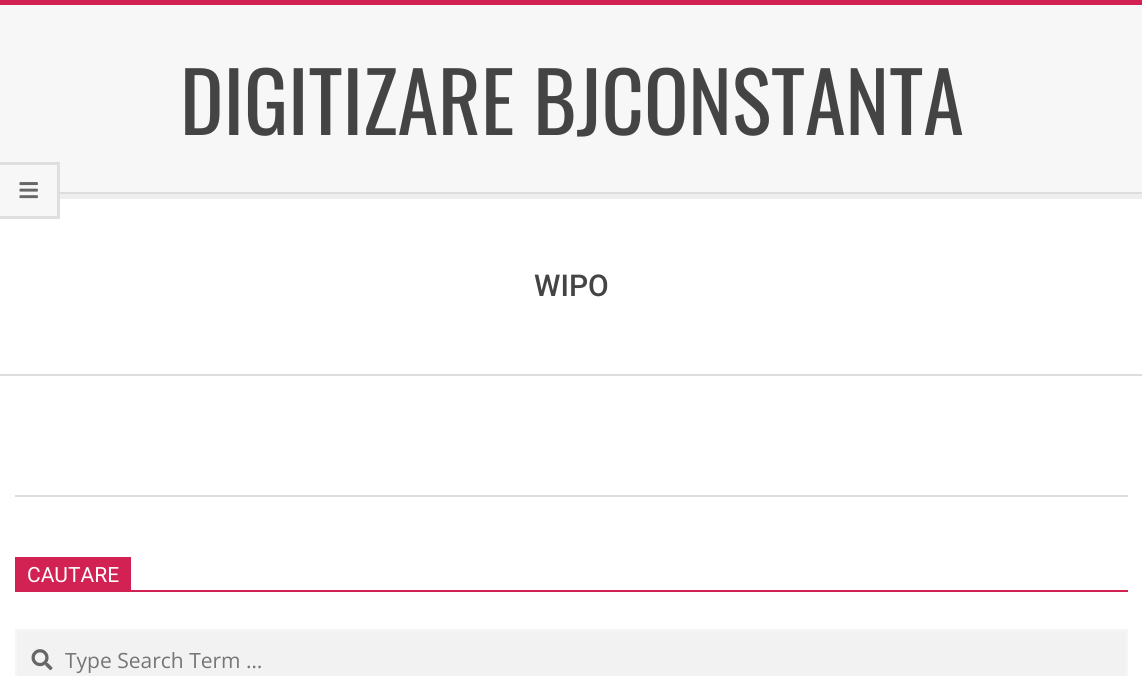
import math
import cairo

surface = cairo.ImageSurface(cairo.FORMAT_RGB24, 1142, 676)
cr = cairo.Context(surface)
options = cairo.FontOptions()
options.set_hint_metrics(cairo.HINT_METRICS_OFF)
options.set_hint_style(cairo.HINT_STYLE_NONE)
cr.set_font_options(options)
cr.set_miter_limit(4)


def rgb(code):
    cr.set_source_rgb(*(v / 255 for v in bytes.fromhex(code[-6:])))


def image(path, x, y, w, h):
    cr.save()
    cr.set_source_surface(cairo.ImageSurface.create_from_png(path), x, y)
    cr.rectangle(x, y, w, h)
    cr.fill()
    cr.restore()


rgb("#f7f7f7")
cr.paint()
for x, y, w, h, color in [
    (0, 0, 1142, 5, "#d22254"),
    (60, 192, 1082, 2, "#dddddd"),
    (60, 194, 1082, 5, "#eeeeee"),
    (0, 199, 1142, 477, "#ffffff"),
    (0, 199, 60, 20, "#f7f7f7"),
]:
    rgb(color)
    cr.rectangle(x, y, w, h)
    cr.fill()
rgb("#dedede")
cr.new_path()
cr.move_to(0, 162)
cr.line_to(60, 162)
cr.line_to(57, 165)
cr.line_to(0, 165)
cr.close_path()
cr.fill()
cr.set_source_rgba(0, 0, 0, 0.1)
cr.new_path()
cr.move_to(60, 162)
cr.line_to(60, 219)
cr.line_to(57, 216)
cr.line_to(57, 165)
cr.close_path()
cr.fill()
cr.new_path()
cr.move_to(60, 219)
cr.line_to(0, 219)
cr.line_to(0, 216)
cr.line_to(57, 216)
cr.close_path()
cr.fill()
image("img/1.png", 19, 182, 19, 17)
for x, y, w, h, color in [
    (0, 374, 1142, 2, "#dddddd"),
    (15, 495, 1113, 2, "#dddddd"),
    (15, 557, 116, 33, "#d22254"),
    (15, 590, 1113, 2, "#d22254"),
]:
    rgb(color)
    cr.rectangle(x, y, w, h)
    cr.fill()
rgb("#f2f2f2")
cr.rectangle(16, 630, 1111, 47)
cr.fill_preserve()
rgb("#f6f6f6")
cr.stroke()
image("img/2.png", 31, 649, 22, 22)
cr.select_font_face("Oswald")
cr.set_font_size(82.5)
rgb("#444444")
cr.move_to(180, 135)
cr.show_text("DIGITIZARE BJCONSTANTA")
cr.select_font_face("Roboto Medium")
cr.set_font_size(30)
cr.move_to(534, 296)
cr.show_text("WIPO")
cr.select_font_face("Roboto")
cr.set_font_size(21)
rgb("#ffffff")
cr.move_to(27, 582)
cr.show_text("CAUTARE")
cr.select_font_face("Open Sans")
rgb("#757575")
cr.move_to(65, 668)
cr.show_text("Type Search Term …")
surface.write_to_png("page.png")
